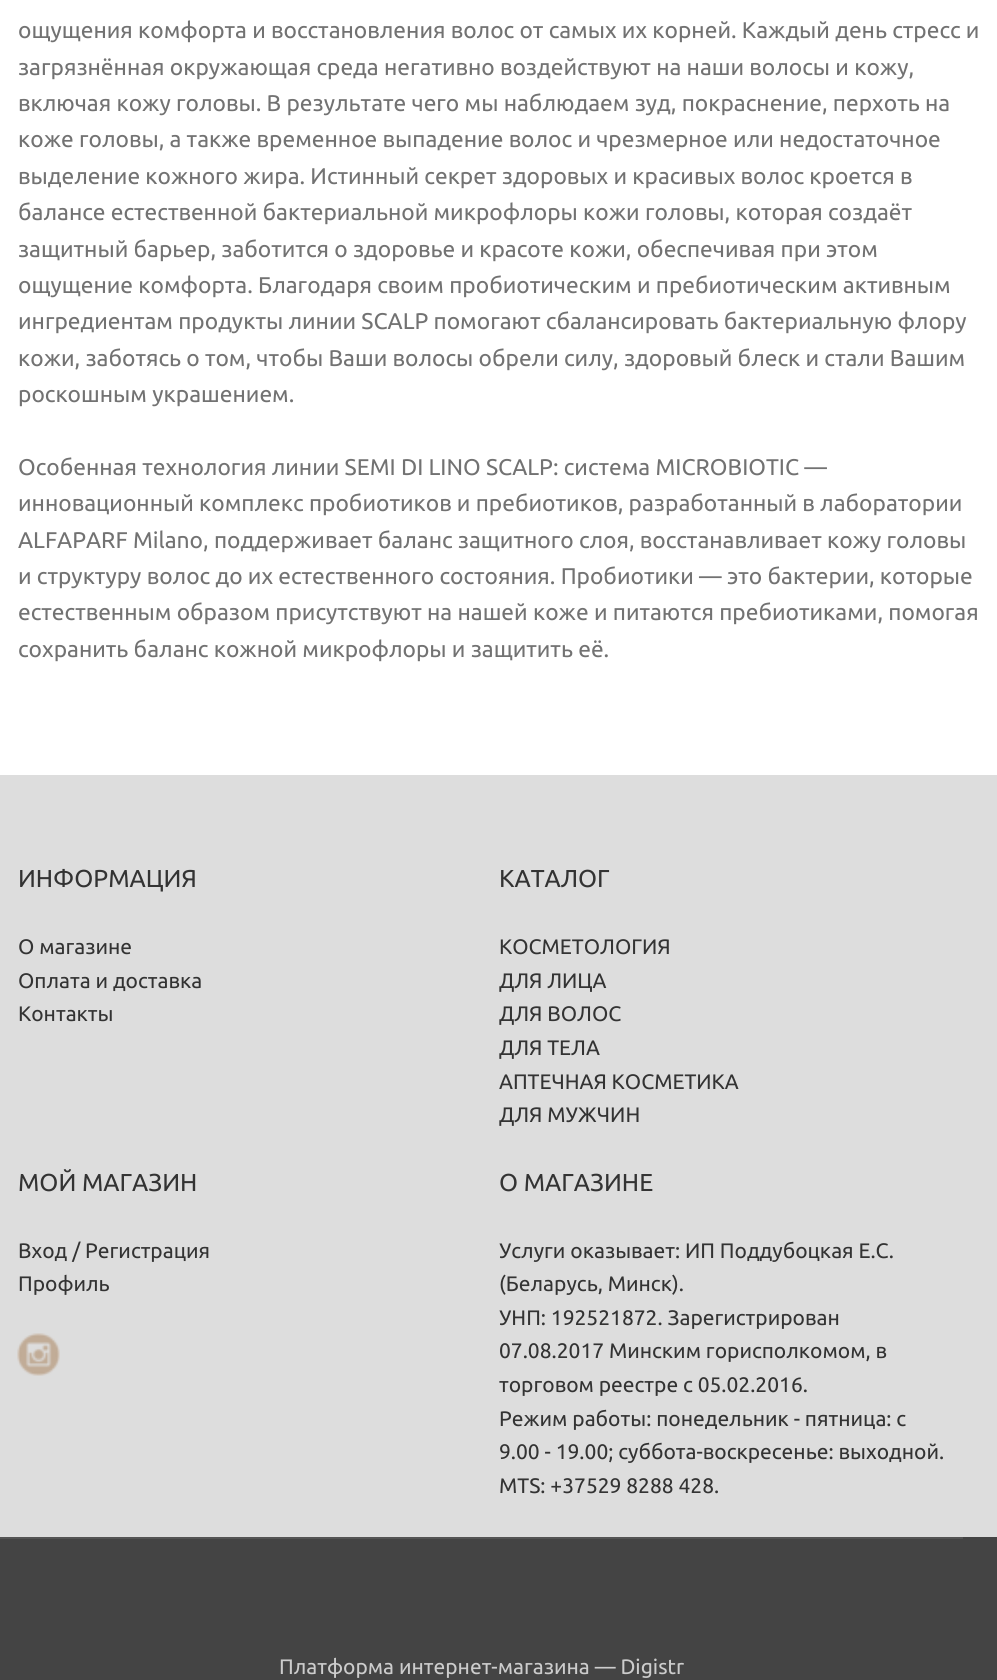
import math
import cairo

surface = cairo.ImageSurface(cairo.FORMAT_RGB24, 997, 1680)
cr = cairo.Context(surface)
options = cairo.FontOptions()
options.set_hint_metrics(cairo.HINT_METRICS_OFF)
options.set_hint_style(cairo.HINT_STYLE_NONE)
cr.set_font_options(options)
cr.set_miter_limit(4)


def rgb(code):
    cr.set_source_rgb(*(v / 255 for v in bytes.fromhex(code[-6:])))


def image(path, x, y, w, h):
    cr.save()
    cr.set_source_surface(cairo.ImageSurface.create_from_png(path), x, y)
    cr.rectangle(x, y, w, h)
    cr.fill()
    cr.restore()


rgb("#ffffff")
cr.paint()
rgb("#dddddd")
cr.rectangle(0, 775, 997, 762)
cr.fill()
image("img/1.png", 17, 1333, 43, 43)
rgb("#444444")
cr.rectangle(0, 1537, 997, 143)
cr.fill()
rgb("#545454")
cr.rectangle(0, 1537, 963, 2)
cr.fill()
cr.select_font_face("Ubuntu")
cr.set_font_size(22.75)
rgb("#727272")
for x, y, s in [
    (18, 38, "ощущения комфорта и восстановления волос от самых их корней. Каждый день стресс и"),
    (18, 75, "загрязнённая окружающая среда негативно воздействуют на наши волосы и кожу,"),
    (18, 111, "включая кожу головы. В результате чего мы наблюдаем зуд, покраснение, перхоть на"),
    (18, 147, "коже головы, а также временное выпадение волос и чрезмерное или недостаточное"),
    (18, 184, "выделение кожного жира. Истинный секрет здоровых и красивых волос кроется в"),
    (18, 220, "балансе естественной бактериальной микрофлоры кожи головы, которая создаёт"),
    (18, 257, "защитный барьер, заботится о здоровье и красоте кожи, обеспечивая при этом"),
    (18, 293, "ощущение комфорта. Благодаря своим пробиотическим и пребиотическим активным"),
    (18, 329, "ингредиентам продукты линии SCALP помогают сбалансировать бактериальную флору"),
    (18, 366, "кожи, заботясь о том, чтобы Ваши волосы обрели силу, здоровый блеск и стали Вашим"),
    (18, 402, "роскошным украшением."),
    (18, 475, "Особенная технология линии SEMI DI LINO SCALP: система MICROBIOTIC —"),
    (18, 511, "инновационный комплекс пробиотиков и пребиотиков, разработанный в лаборатории"),
    (18, 548, "ALFAPARF Milano, поддерживает баланс защитного слоя, восстанавливает кожу головы"),
    (18, 584, "и структуру волос до их естественного состояния. Пробиотики — это бактерии, которые"),
    (18, 620, "естественным образом присутствуют на нашей коже и питаются пребиотиками, помогая"),
    (18, 657, "сохранить баланс кожной микрофлоры и защитить её."),
]:
    cr.move_to(x, y)
    cr.show_text(s)
cr.set_font_size(24.5)
rgb("#333333")
cr.move_to(18, 887)
cr.show_text("ИНФОРМАЦИЯ")
cr.set_font_size(21)
for x, y, s in [
    (18, 954, "О магазине"),
    (18, 988, "Оплата и доставка"),
    (18, 1021, "Контакты"),
]:
    cr.move_to(x, y)
    cr.show_text(s)
cr.set_font_size(24.5)
cr.move_to(499, 887)
cr.show_text("КАТАЛОГ")
cr.set_font_size(21)
for x, y, s in [
    (499, 954, "КОСМЕТОЛОГИЯ"),
    (499, 988, "ДЛЯ ЛИЦА"),
    (499, 1021, "ДЛЯ ВОЛОС"),
    (499, 1055, "ДЛЯ ТЕЛА"),
    (499, 1089, "АПТЕЧНАЯ КОСМЕТИКА"),
    (499, 1122, "ДЛЯ МУЖЧИН"),
]:
    cr.move_to(x, y)
    cr.show_text(s)
cr.set_font_size(24.5)
cr.move_to(18, 1191)
cr.show_text("МОЙ МАГАЗИН")
cr.set_font_size(21)
cr.move_to(18, 1258)
cr.show_text("Вход / Регистрация")
cr.move_to(18, 1291)
cr.show_text("Профиль")
cr.set_font_size(24.5)
cr.move_to(499, 1191)
cr.show_text("О МАГАЗИНЕ")
cr.set_font_size(21)
for x, y, s in [
    (499, 1258, "Услуги оказывает: ИП Поддубоцкая Е.С."),
    (499, 1291, "(Беларусь, Минск)."),
    (499, 1325, "УНП: 192521872. Зарегистрирован"),
    (499, 1358, "07.08.2017 Минским горисполкомом, в"),
    (499, 1392, "торговом реестре с 05.02.2016."),
    (499, 1426, "Режим работы: понедельник - пятница: с"),
    (499, 1459, "9.00 - 19.00; суббота-воскресенье: выходной."),
    (499, 1493, "MTS: +37529 8288 428."),
]:
    cr.move_to(x, y)
    cr.show_text(s)
rgb("#cccccc")
cr.move_to(279, 1674)
cr.show_text("Платформа интернет-магазина — Digistr")
surface.write_to_png("page.png")
